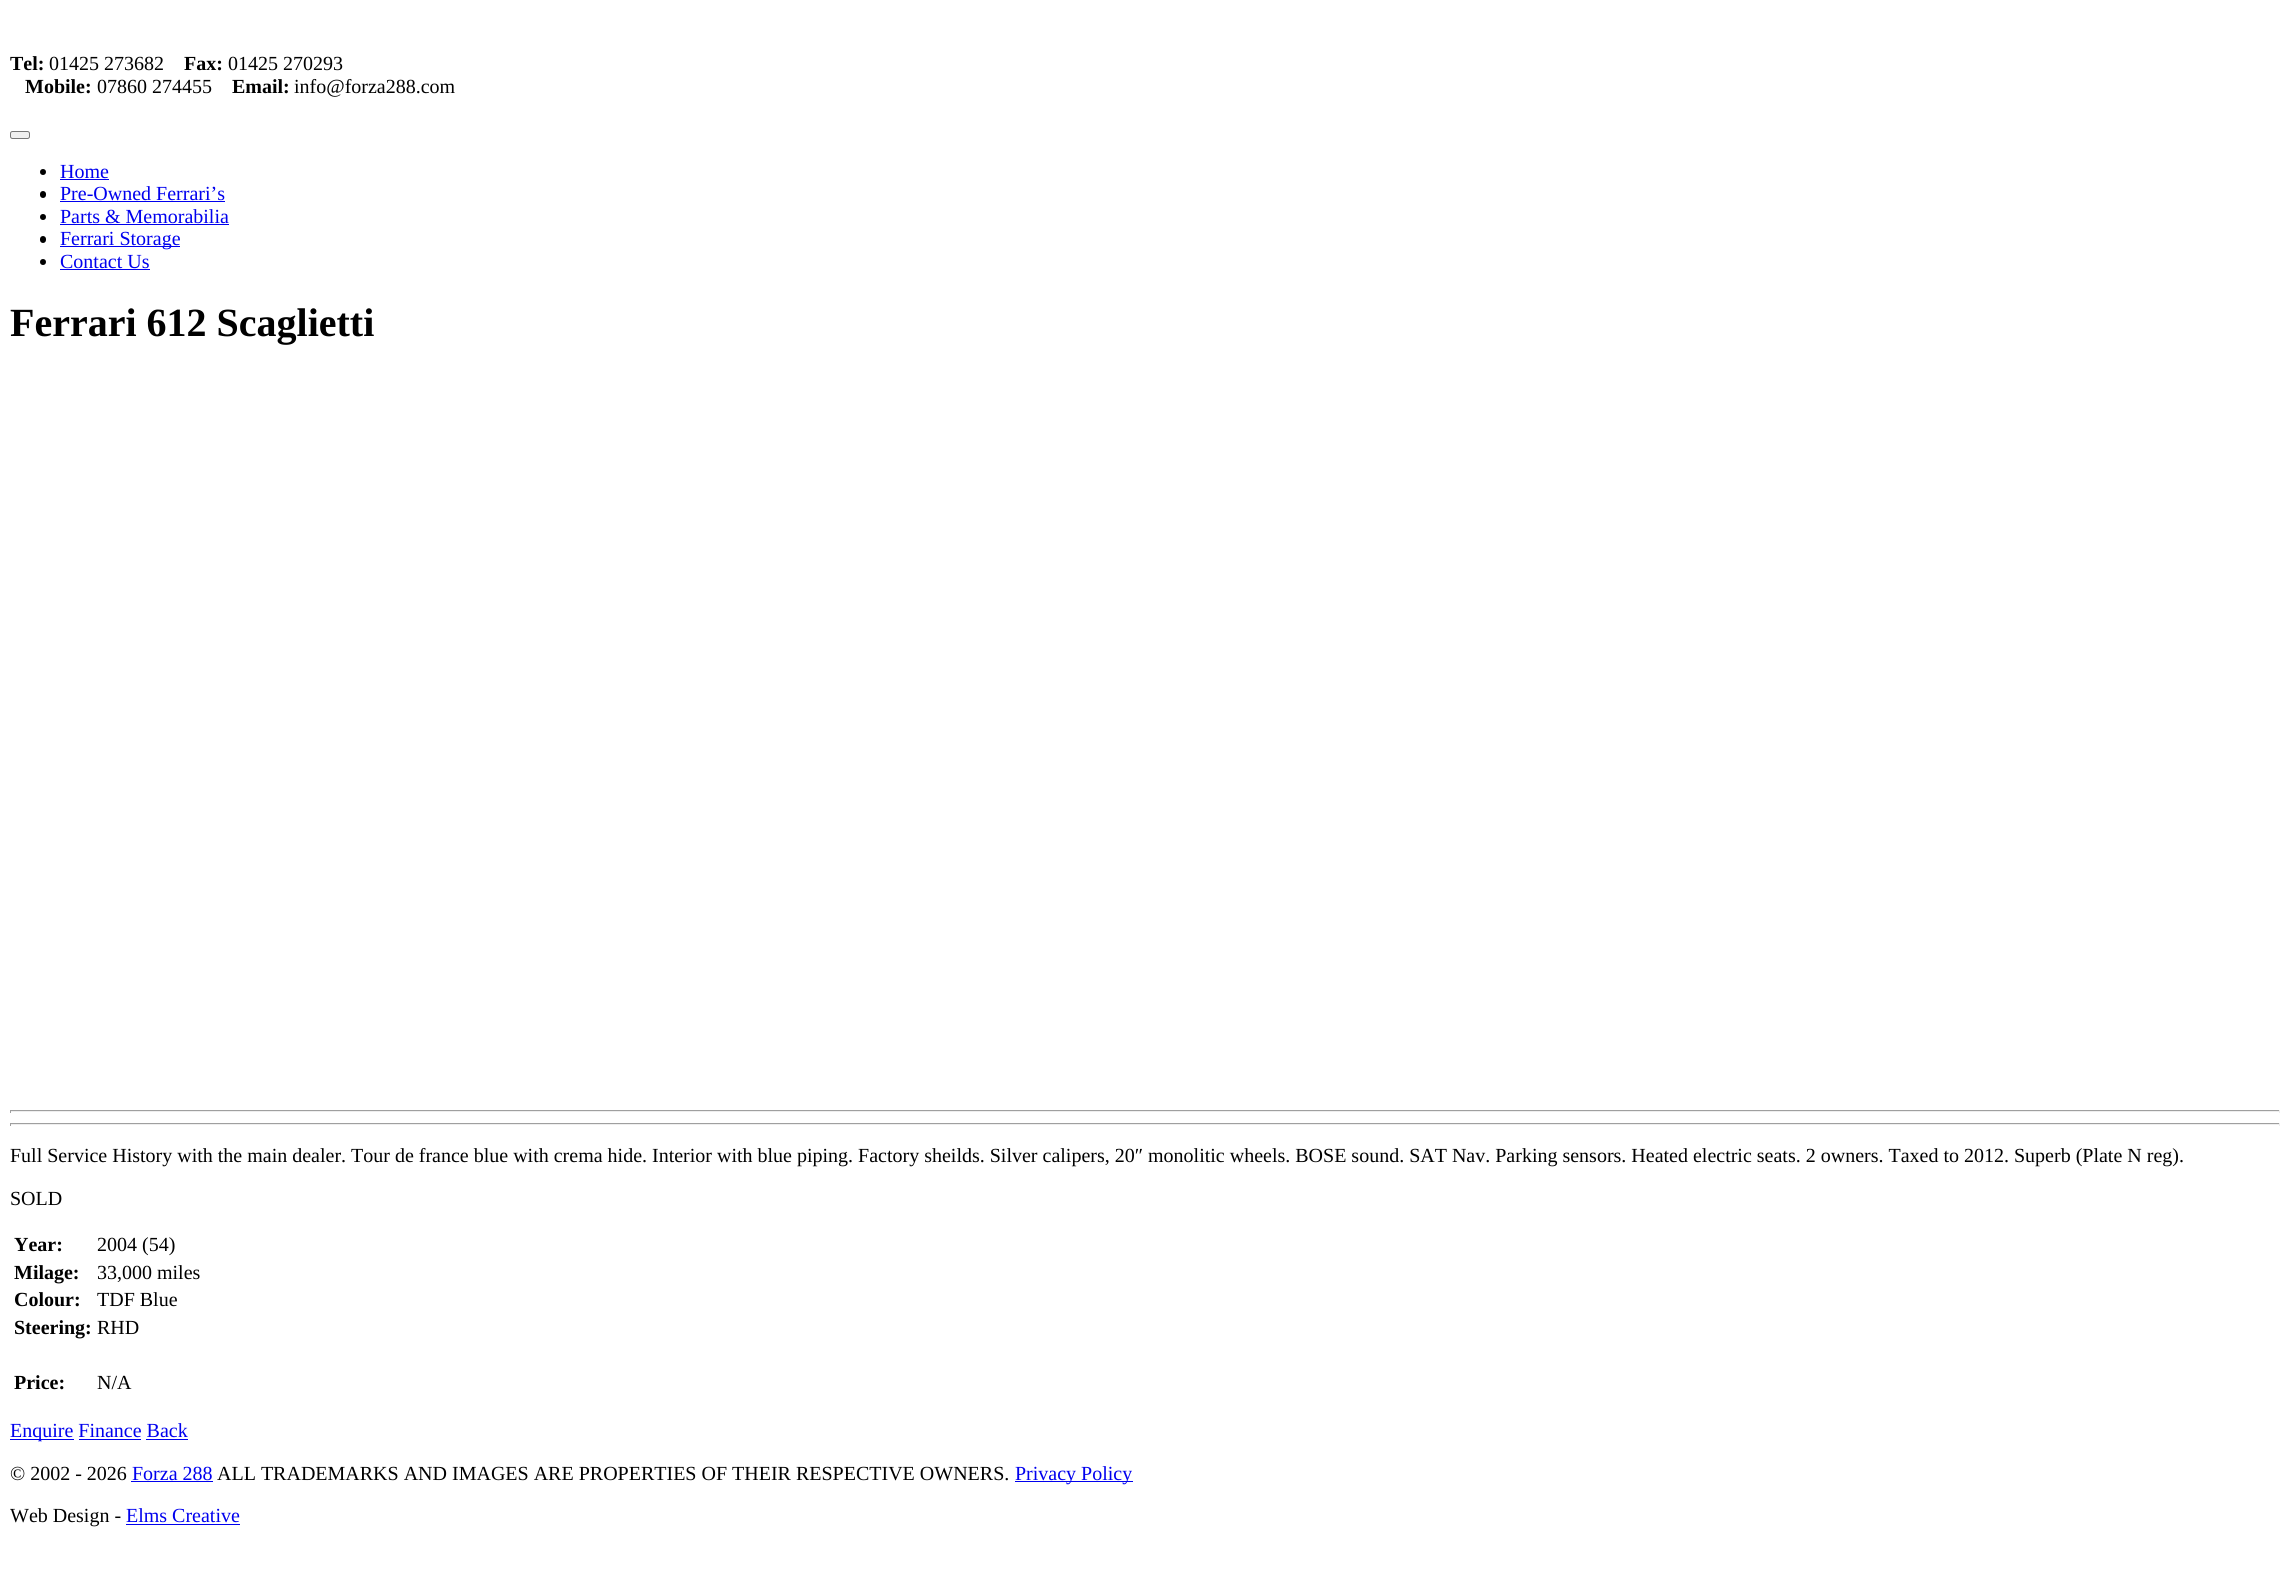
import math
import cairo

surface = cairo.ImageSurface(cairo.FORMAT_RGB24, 2290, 1584)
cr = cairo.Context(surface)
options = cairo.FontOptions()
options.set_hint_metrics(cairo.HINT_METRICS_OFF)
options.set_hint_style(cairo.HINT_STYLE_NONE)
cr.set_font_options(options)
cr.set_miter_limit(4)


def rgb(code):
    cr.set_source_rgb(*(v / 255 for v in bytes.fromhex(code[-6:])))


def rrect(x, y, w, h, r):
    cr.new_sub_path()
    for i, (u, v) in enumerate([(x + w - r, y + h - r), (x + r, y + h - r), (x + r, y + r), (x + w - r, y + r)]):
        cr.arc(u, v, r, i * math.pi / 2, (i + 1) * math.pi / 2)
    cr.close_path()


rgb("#ffffff")
cr.paint()
rgb("#efefef")
rrect(10.5, 131.5, 19, 7, 2)
cr.fill_preserve()
rgb("#767676")
cr.set_line_width(1)
cr.stroke()
rgb("#000000")
cr.arc(43, 172, 3, 0, 2 * math.pi)
cr.fill()
rgb("#0000ee")
cr.rectangle(60, 179, 49, 1)
cr.fill()
rgb("#000000")
rrect(40, 191, 6, 7, 3)
cr.fill()
rgb("#0000ee")
cr.rectangle(60, 201, 165, 1)
cr.fill()
rgb("#000000")
cr.arc(43, 217, 3, 0, 2 * math.pi)
cr.fill()
rgb("#0000ee")
cr.rectangle(60, 224, 169, 1)
cr.fill()
rgb("#000000")
rrect(40, 236, 6, 7, 3)
cr.fill()
rgb("#0000ee")
cr.rectangle(60, 246, 120, 1)
cr.fill()
rgb("#000000")
cr.arc(43, 262, 3, 0, 2 * math.pi)
cr.fill()
for x, y, w, h, color in [
    (60, 269, 90, 1, "#0000ee"),
    (10, 1110, 2270, 1, "#9f9f9f"),
    (2279, 1110, 1, 3, "#eeeeee"),
    (10, 1111, 2270, 1, "#eeeeee"),
    (10, 1110, 1, 3, "#9f9f9f"),
    (10, 1123, 2270, 1, "#9f9f9f"),
    (2279, 1123, 1, 3, "#eeeeee"),
    (10, 1124, 2270, 1, "#eeeeee"),
    (10, 1123, 1, 3, "#9f9f9f"),
    (10, 1439, 64, 1, "#0000ee"),
    (79, 1439, 62, 1, "#0000ee"),
    (146, 1439, 42, 1, "#0000ee"),
    (131, 1481, 82, 1, "#0000ee"),
    (1015, 1481, 118, 1, "#0000ee"),
    (126, 1524, 114, 1, "#0000ee"),
]:
    rgb(color)
    cr.rectangle(x, y, w, h)
    cr.fill()
cr.select_font_face("Liberation Serif", cairo.FONT_SLANT_NORMAL, cairo.FONT_WEIGHT_BOLD)
cr.set_font_size(20)
rgb("#000000")
cr.move_to(10, 70)
cr.show_text("Tel:")
cr.select_font_face("Liberation Serif")
cr.move_to(49, 70)
cr.show_text("01425 273682")
cr.select_font_face("Liberation Serif", cairo.FONT_SLANT_NORMAL, cairo.FONT_WEIGHT_BOLD)
cr.move_to(184, 70)
cr.show_text("Fax:")
cr.select_font_face("Liberation Serif")
cr.move_to(228, 70)
cr.show_text("01425 270293")
cr.select_font_face("Liberation Serif", cairo.FONT_SLANT_NORMAL, cairo.FONT_WEIGHT_BOLD)
cr.move_to(25, 93)
cr.show_text("Mobile:")
cr.select_font_face("Liberation Serif")
cr.move_to(97, 93)
cr.show_text("07860 274455")
cr.select_font_face("Liberation Serif", cairo.FONT_SLANT_NORMAL, cairo.FONT_WEIGHT_BOLD)
cr.move_to(232, 93)
cr.show_text("Email:")
cr.select_font_face("Liberation Serif")
cr.move_to(294, 93)
cr.show_text("info@forza288.com")
rgb("#0000ee")
for x, y, s in [
    (60, 178, "Home"),
    (60, 200, "Pre-Owned Ferrari’s"),
    (60, 223, "Parts & Memorabilia"),
    (60, 245, "Ferrari Storage"),
    (60, 268, "Contact Us"),
]:
    cr.move_to(x, y)
    cr.show_text(s)
cr.select_font_face("Liberation Serif", cairo.FONT_SLANT_NORMAL, cairo.FONT_WEIGHT_BOLD)
cr.set_font_size(40)
rgb("#000000")
cr.move_to(10, 336)
cr.show_text("Ferrari 612 Scaglietti")
cr.select_font_face("Liberation Serif")
cr.set_font_size(20)
cr.move_to(10, 1162)
cr.show_text("Full Service History with the main dealer. Tour de france blue with crema hide. Interior with blue piping. Factory sheilds. Silver calipers, 20″ monolitic wheels. BOSE sound. SAT Nav. Parking sensors. Heated electric seats. 2 owners. Taxed to 2012. Superb (Plate N reg).")
cr.move_to(10, 1205)
cr.show_text("SOLD")
cr.select_font_face("Liberation Serif", cairo.FONT_SLANT_NORMAL, cairo.FONT_WEIGHT_BOLD)
cr.move_to(14, 1251)
cr.show_text("Year:")
cr.select_font_face("Liberation Serif")
cr.move_to(97, 1251)
cr.show_text("2004 (54)")
cr.select_font_face("Liberation Serif", cairo.FONT_SLANT_NORMAL, cairo.FONT_WEIGHT_BOLD)
cr.move_to(14, 1279)
cr.show_text("Milage:")
cr.select_font_face("Liberation Serif")
cr.move_to(97, 1279)
cr.show_text("33,000 miles")
cr.select_font_face("Liberation Serif", cairo.FONT_SLANT_NORMAL, cairo.FONT_WEIGHT_BOLD)
cr.move_to(14, 1306)
cr.show_text("Colour:")
cr.select_font_face("Liberation Serif")
cr.move_to(97, 1306)
cr.show_text("TDF Blue")
cr.select_font_face("Liberation Serif", cairo.FONT_SLANT_NORMAL, cairo.FONT_WEIGHT_BOLD)
cr.move_to(14, 1334)
cr.show_text("Steering:")
cr.select_font_face("Liberation Serif")
cr.move_to(97, 1334)
cr.show_text("RHD")
cr.select_font_face("Liberation Serif", cairo.FONT_SLANT_NORMAL, cairo.FONT_WEIGHT_BOLD)
cr.move_to(14, 1389)
cr.show_text("Price:")
cr.select_font_face("Liberation Serif")
cr.move_to(97, 1389)
cr.show_text("N/A")
rgb("#0000ee")
cr.move_to(10, 1437)
cr.show_text("Enquire Finance Back")
rgb("#000000")
cr.move_to(10, 1480)
cr.show_text("© 2002 - 2026")
rgb("#0000ee")
cr.move_to(132, 1480)
cr.show_text("Forza 288")
rgb("#000000")
cr.move_to(217, 1480)
cr.show_text("ALL TRADEMARKS AND IMAGES ARE PROPERTIES OF THEIR RESPECTIVE OWNERS.")
rgb("#0000ee")
cr.move_to(1015, 1480)
cr.show_text("Privacy Policy")
rgb("#000000")
cr.move_to(10, 1522)
cr.show_text("Web Design -")
rgb("#0000ee")
cr.move_to(126, 1522)
cr.show_text("Elms Creative")
surface.write_to_png("page.png")
